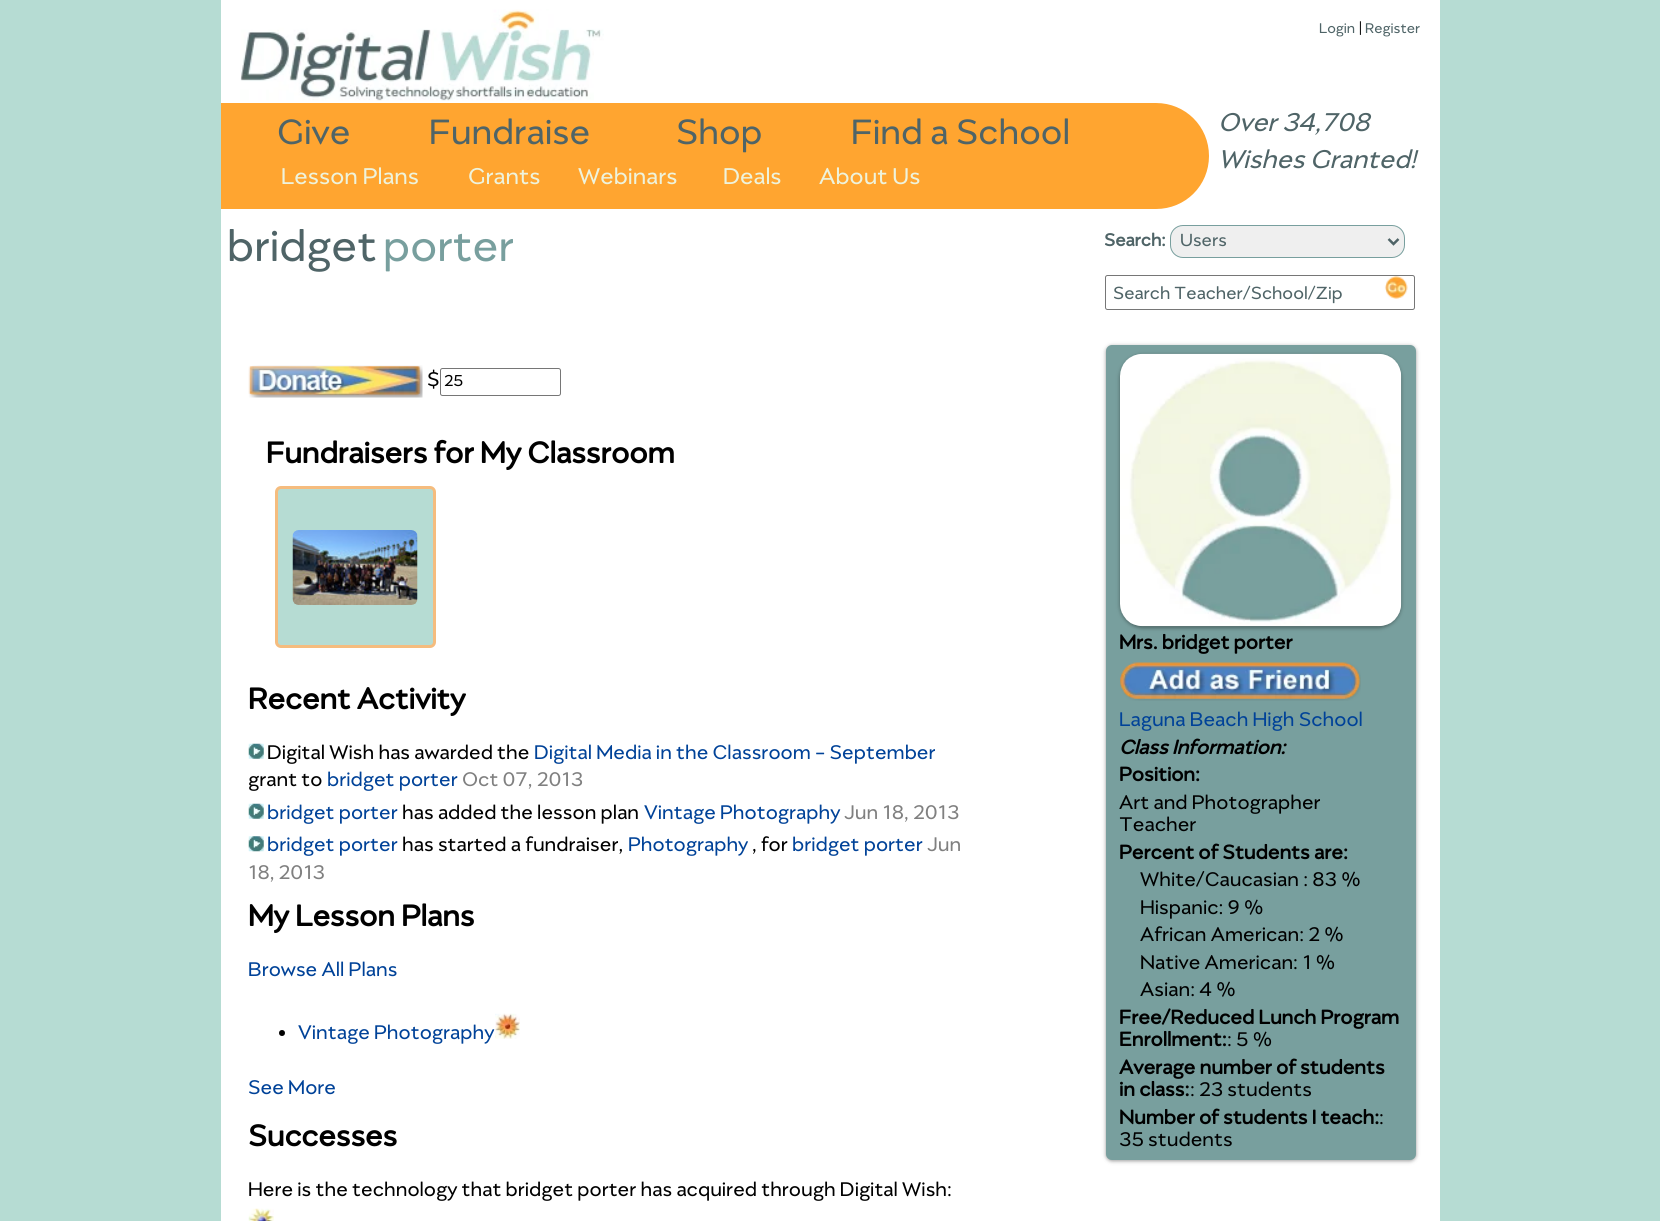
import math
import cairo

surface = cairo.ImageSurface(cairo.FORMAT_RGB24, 1660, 1221)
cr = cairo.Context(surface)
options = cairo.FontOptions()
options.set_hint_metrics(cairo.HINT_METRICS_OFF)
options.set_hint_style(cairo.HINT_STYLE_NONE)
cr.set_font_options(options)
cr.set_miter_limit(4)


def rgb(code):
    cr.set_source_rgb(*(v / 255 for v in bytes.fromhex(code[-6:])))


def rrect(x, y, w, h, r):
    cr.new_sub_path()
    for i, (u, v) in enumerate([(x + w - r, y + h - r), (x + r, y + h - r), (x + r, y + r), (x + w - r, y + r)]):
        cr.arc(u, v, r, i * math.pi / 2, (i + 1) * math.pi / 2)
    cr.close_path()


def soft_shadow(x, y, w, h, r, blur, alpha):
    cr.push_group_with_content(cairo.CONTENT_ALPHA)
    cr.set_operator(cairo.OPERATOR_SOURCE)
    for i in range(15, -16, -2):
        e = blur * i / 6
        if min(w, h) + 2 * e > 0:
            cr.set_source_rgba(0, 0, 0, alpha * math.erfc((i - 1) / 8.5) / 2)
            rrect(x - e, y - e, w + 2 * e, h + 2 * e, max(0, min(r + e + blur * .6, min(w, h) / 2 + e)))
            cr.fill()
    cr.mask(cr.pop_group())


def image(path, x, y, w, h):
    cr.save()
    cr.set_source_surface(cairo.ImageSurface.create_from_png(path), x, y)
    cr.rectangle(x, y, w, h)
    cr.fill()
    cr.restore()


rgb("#b6dcd3")
cr.paint()
rgb("#ffffff")
cr.rectangle(221, 0, 1219, 1221)
cr.fill()
image("img/1.png", 240, 9, 364, 92)
rgb("#ffa530")
cr.new_path()
cr.move_to(221, 103)
cr.line_to(1156, 103)
cr.curve_to(1185.5, 103, 1209, 126.5, 1209, 156)
cr.curve_to(1209, 185.5, 1185.5, 209, 1156, 209)
cr.line_to(221, 209)
cr.close_path()
cr.fill()
rgb("#efefef")
rrect(1170.5, 225.5, 234, 32, 12.5)
cr.fill_preserve()
rgb("#789f9e")
cr.set_line_width(1)
cr.stroke()
cr.new_path()
cr.move_to(1388.5, 239)
cr.line_to(1393.5, 244)
cr.line_to(1398.5, 239)
rgb("#4f6467")
cr.set_line_width(2.5)
cr.stroke()
rrect(1105.5, 275.5, 309, 34, 2)
rgb("#767676")
cr.set_line_width(1)
cr.stroke()
image("img/2.png", 1384, 276, 24, 23)
image("img/3.png", 248, 365, 175, 33)
rrect(440.5, 368.5, 120, 27, 2)
cr.stroke()
rgb("#b6dcd3")
rrect(276.5, 487.5, 158, 159, 4.5)
cr.fill_preserve()
rgb("#f5bc7e")
cr.set_line_width(3)
cr.stroke()
image("img/4.png", 292, 530, 126, 75)
image("img/5.png", 248, 743, 16, 16)
image("img/5.png", 248, 803, 16, 16)
image("img/6.png", 248, 836, 16, 16)
rgb("#000000")
cr.arc(282, 1033, 3, 0, 2 * math.pi)
cr.fill()
image("img/7.png", 495, 1013, 25, 26)
image("img/8.png", 248, 1208, 26, 13)
rgb("#000000")
soft_shadow(1106, 346, 310, 815, 6, 2, 0.4)
rgb("#789f9e")
rrect(1106, 345, 310, 815, 6)
cr.fill()
rgb("#000000")
soft_shadow(1120, 355, 281, 273, 23, 2, 0.4)
image("img/9.png", 1120, 353, 282, 274)
image("img/10.png", 1120, 662, 241, 39)
cr.select_font_face("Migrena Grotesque")
cr.set_font_size(16)
rgb("#4f6467")
cr.move_to(1319, 33)
cr.show_text("Login")
rgb("#000000")
cr.move_to(1359, 33)
cr.show_text("|")
rgb("#4f6467")
cr.move_to(1365, 33)
cr.show_text("Register")
cr.select_font_face("Migrena Grotesque", cairo.FONT_SLANT_ITALIC)
cr.set_font_size(29.25)
cr.move_to(1218, 131)
cr.show_text("Over 34,708")
cr.move_to(1218, 168)
cr.show_text("Wishes Granted!")
cr.select_font_face("Migrena Grotesque")
cr.set_font_size(40)
for x, y, s in [
    (277, 144, "Give"),
    (429, 144, "Fundraise"),
    (676, 144, "Shop"),
    (851, 144, "Find a School"),
]:
    cr.move_to(x, y)
    cr.show_text(s)
cr.set_font_size(26)
rgb("#eef3dc")
for x, y, s in [
    (281, 184, "Lesson Plans"),
    (468, 184, "Grants"),
    (578, 184, "Webinars"),
    (723, 184, "Deals"),
    (819, 184, "About Us"),
]:
    cr.move_to(x, y)
    cr.show_text(s)
cr.set_font_size(50)
rgb("#4f6467")
cr.move_to(227, 261)
cr.show_text("bridget")
rgb("#789f9e")
cr.move_to(383, 261)
cr.show_text("porter")
cr.select_font_face("Migrena Grotesque", cairo.FONT_SLANT_NORMAL, cairo.FONT_WEIGHT_BOLD)
cr.set_font_size(20)
rgb("#4f6467")
cr.move_to(1104, 246)
cr.show_text("Search:")
cr.select_font_face("Migrena Grotesque")
cr.move_to(1180, 246)
cr.show_text("Users")
cr.move_to(1113, 299)
cr.show_text("Search Teacher/School/Zip")
cr.set_font_size(22.5)
rgb("#000000")
cr.move_to(427, 386)
cr.show_text("$")
cr.set_font_size(18)
cr.move_to(444, 386)
cr.show_text("25")
cr.select_font_face("Migrena Grotesque", cairo.FONT_SLANT_NORMAL, cairo.FONT_WEIGHT_BOLD)
cr.set_font_size(33.75)
cr.move_to(266, 463)
cr.show_text("Fundraisers for My Classroom")
cr.move_to(248, 709)
cr.show_text("Recent Activity")
cr.select_font_face("Migrena Grotesque")
cr.set_font_size(22.5)
cr.move_to(267, 759)
cr.show_text("Digital Wish has awarded the")
rgb("#004298")
cr.move_to(534, 759)
cr.show_text("Digital Media in the Classroom - September")
rgb("#000000")
cr.move_to(248, 786)
cr.show_text("grant to")
rgb("#004298")
cr.move_to(327, 786)
cr.show_text("bridget porter")
rgb("#808080")
cr.move_to(462, 786)
cr.show_text("Oct 07, 2013")
rgb("#004298")
cr.move_to(267, 819)
cr.show_text("bridget porter")
rgb("#000000")
cr.move_to(402, 819)
cr.show_text("has added the lesson plan")
rgb("#004298")
cr.move_to(644, 819)
cr.show_text("Vintage Photography")
rgb("#808080")
cr.move_to(844, 819)
cr.show_text("Jun 18, 2013")
rgb("#004298")
cr.move_to(267, 851)
cr.show_text("bridget porter")
rgb("#000000")
cr.move_to(402, 851)
cr.show_text("has started a fundraiser,")
rgb("#004298")
cr.move_to(628, 851)
cr.show_text("Photography")
rgb("#000000")
cr.move_to(752, 851)
cr.show_text(", for")
rgb("#004298")
cr.move_to(792, 851)
cr.show_text("bridget porter")
rgb("#808080")
cr.move_to(927, 851)
cr.show_text("Jun")
cr.move_to(248, 879)
cr.show_text("18, 2013")
cr.select_font_face("Migrena Grotesque", cairo.FONT_SLANT_NORMAL, cairo.FONT_WEIGHT_BOLD)
cr.set_font_size(33.75)
rgb("#000000")
cr.move_to(248, 926)
cr.show_text("My Lesson Plans")
cr.select_font_face("Migrena Grotesque")
cr.set_font_size(22.5)
rgb("#004298")
for x, y, s in [
    (248, 976, "Browse All Plans"),
    (298, 1039, "Vintage Photography"),
    (248, 1094, "See More"),
]:
    cr.move_to(x, y)
    cr.show_text(s)
cr.select_font_face("Migrena Grotesque", cairo.FONT_SLANT_NORMAL, cairo.FONT_WEIGHT_BOLD)
cr.set_font_size(33.75)
rgb("#000000")
cr.move_to(248, 1146)
cr.show_text("Successes")
cr.select_font_face("Migrena Grotesque")
cr.set_font_size(22.5)
cr.move_to(248, 1196)
cr.show_text("Here is the technology that bridget porter has acquired through Digital Wish:")
cr.select_font_face("Migrena Grotesque", cairo.FONT_SLANT_NORMAL, cairo.FONT_WEIGHT_BOLD)
cr.move_to(1119, 649)
cr.show_text("Mrs. bridget porter")
cr.select_font_face("Migrena Grotesque")
rgb("#004298")
cr.move_to(1119, 726)
cr.show_text("Laguna Beach High School")
cr.select_font_face("Migrena Grotesque", cairo.FONT_SLANT_ITALIC, cairo.FONT_WEIGHT_BOLD)
rgb("#000000")
cr.move_to(1119, 754)
cr.show_text("Class Information:")
cr.select_font_face("Migrena Grotesque", cairo.FONT_SLANT_NORMAL, cairo.FONT_WEIGHT_BOLD)
cr.move_to(1119, 781)
cr.show_text("Position:")
cr.select_font_face("Migrena Grotesque")
cr.move_to(1119, 809)
cr.show_text("Art and Photographer")
cr.move_to(1119, 831)
cr.show_text("Teacher")
cr.select_font_face("Migrena Grotesque", cairo.FONT_SLANT_NORMAL, cairo.FONT_WEIGHT_BOLD)
cr.move_to(1119, 859)
cr.show_text("Percent of Students are:")
cr.select_font_face("Migrena Grotesque")
for x, y, s in [
    (1140, 886, "White/Caucasian : 83 %"),
    (1140, 914, "Hispanic: 9 %"),
    (1140, 941, "African American: 2 %"),
    (1140, 969, "Native American: 1 %"),
    (1140, 996, "Asian: 4 %"),
]:
    cr.move_to(x, y)
    cr.show_text(s)
cr.select_font_face("Migrena Grotesque", cairo.FONT_SLANT_NORMAL, cairo.FONT_WEIGHT_BOLD)
cr.move_to(1119, 1024)
cr.show_text("Free/Reduced Lunch Program")
cr.move_to(1119, 1046)
cr.show_text("Enrollment:")
cr.select_font_face("Migrena Grotesque")
cr.move_to(1227, 1046)
cr.show_text(": 5 %")
cr.select_font_face("Migrena Grotesque", cairo.FONT_SLANT_NORMAL, cairo.FONT_WEIGHT_BOLD)
cr.move_to(1119, 1074)
cr.show_text("Average number of students")
cr.move_to(1119, 1096)
cr.show_text("in class:")
cr.select_font_face("Migrena Grotesque")
cr.move_to(1190, 1096)
cr.show_text(": 23 students")
cr.select_font_face("Migrena Grotesque", cairo.FONT_SLANT_NORMAL, cairo.FONT_WEIGHT_BOLD)
cr.move_to(1119, 1124)
cr.show_text("Number of students I teach:")
cr.select_font_face("Migrena Grotesque")
cr.move_to(1379, 1124)
cr.show_text(":")
cr.move_to(1119, 1146)
cr.show_text("35 students")
surface.write_to_png("page.png")
